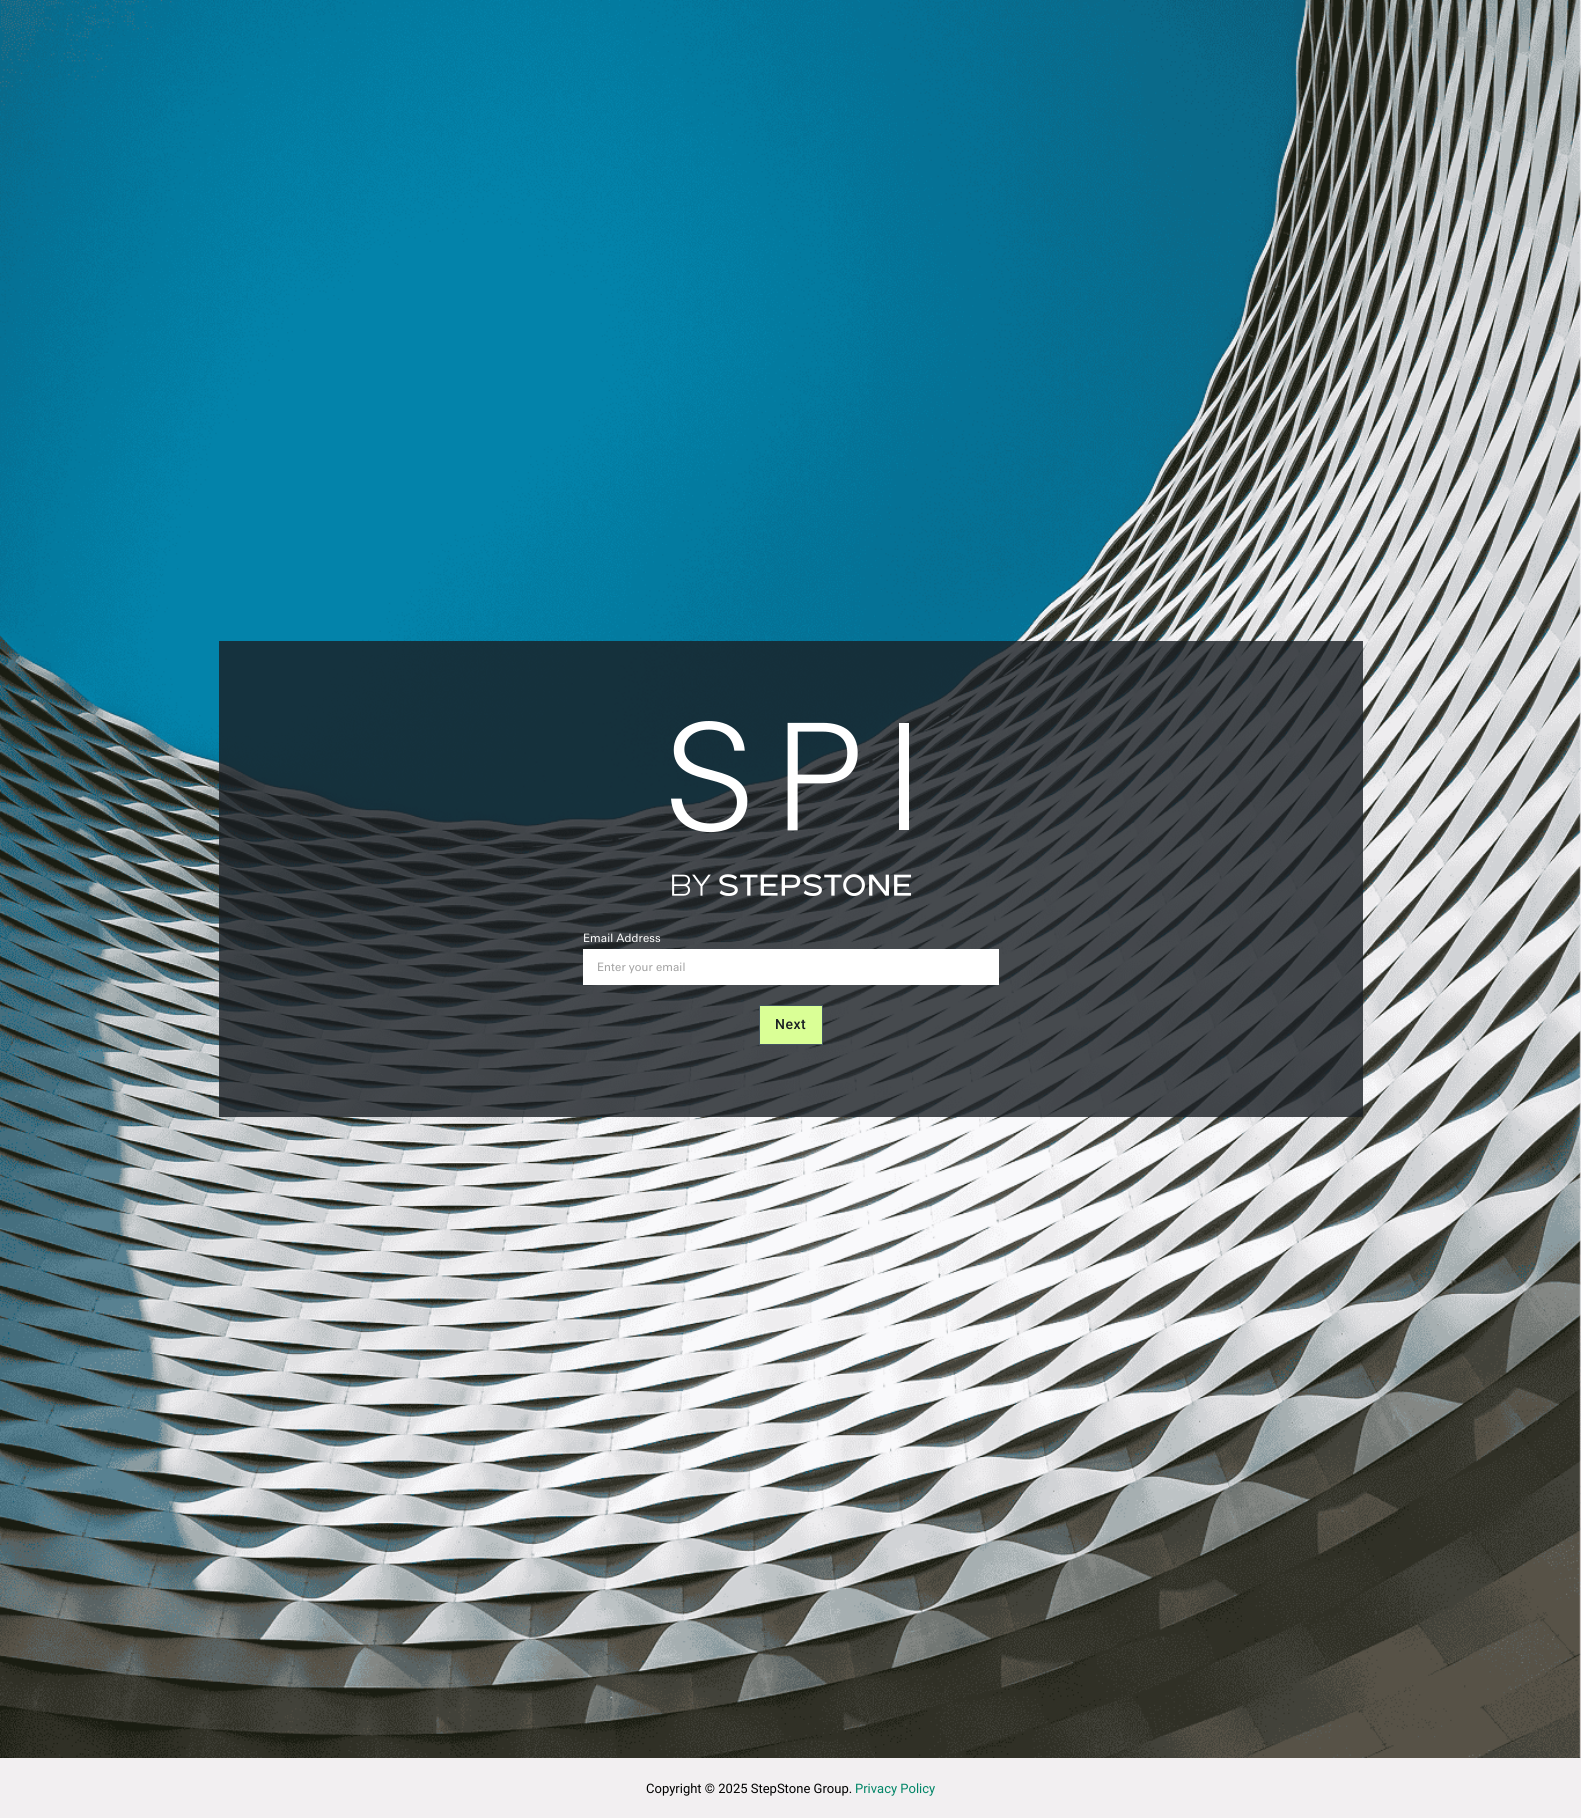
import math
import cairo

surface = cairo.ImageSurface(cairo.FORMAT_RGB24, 1581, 1818)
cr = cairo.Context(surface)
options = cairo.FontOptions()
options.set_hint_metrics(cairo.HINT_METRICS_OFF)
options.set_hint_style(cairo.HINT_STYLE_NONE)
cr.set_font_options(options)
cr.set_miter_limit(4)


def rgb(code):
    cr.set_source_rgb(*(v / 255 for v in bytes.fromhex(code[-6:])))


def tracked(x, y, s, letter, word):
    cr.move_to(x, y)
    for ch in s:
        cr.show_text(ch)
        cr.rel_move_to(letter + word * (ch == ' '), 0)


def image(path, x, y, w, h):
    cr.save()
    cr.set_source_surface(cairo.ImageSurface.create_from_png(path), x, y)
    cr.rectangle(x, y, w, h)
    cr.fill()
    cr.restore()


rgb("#f2eff1")
cr.paint()
image("img/1.png", 0, 0, 1581, 1758)
cr.set_source_rgba(0.098, 0.122, 0.137, 0.8)
cr.rectangle(219, 641, 1144, 476)
cr.fill()
image("img/2.png", 671, 721, 240, 175)
rgb("#ffffff")
cr.rectangle(583, 949, 416, 36)
cr.fill()
rgb("#daff96")
cr.rectangle(759.5, 1005.5, 63, 39)
cr.fill_preserve()
rgb("#445460")
cr.set_line_width(1)
cr.stroke()
cr.select_font_face("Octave")
cr.set_font_size(12)
rgb("#ffffff")
tracked(583, 942, "Email Address", 0.1, 0)
rgb("#a2a2a2")
tracked(597, 971, "Enter your email", 0.1, 0)
cr.select_font_face("Roboto Medium")
cr.set_font_size(14)
rgb("#191f23")
tracked(775, 1029, "Next", 0.5, 0)
cr.select_font_face("Roboto")
cr.set_font_size(13)
rgb("#000000")
cr.move_to(646, 1793)
cr.show_text("Copyright © 2025 StepStone Group.")
rgb("#008566")
cr.move_to(855, 1793)
cr.show_text("Privacy Policy")
surface.write_to_png("page.png")
